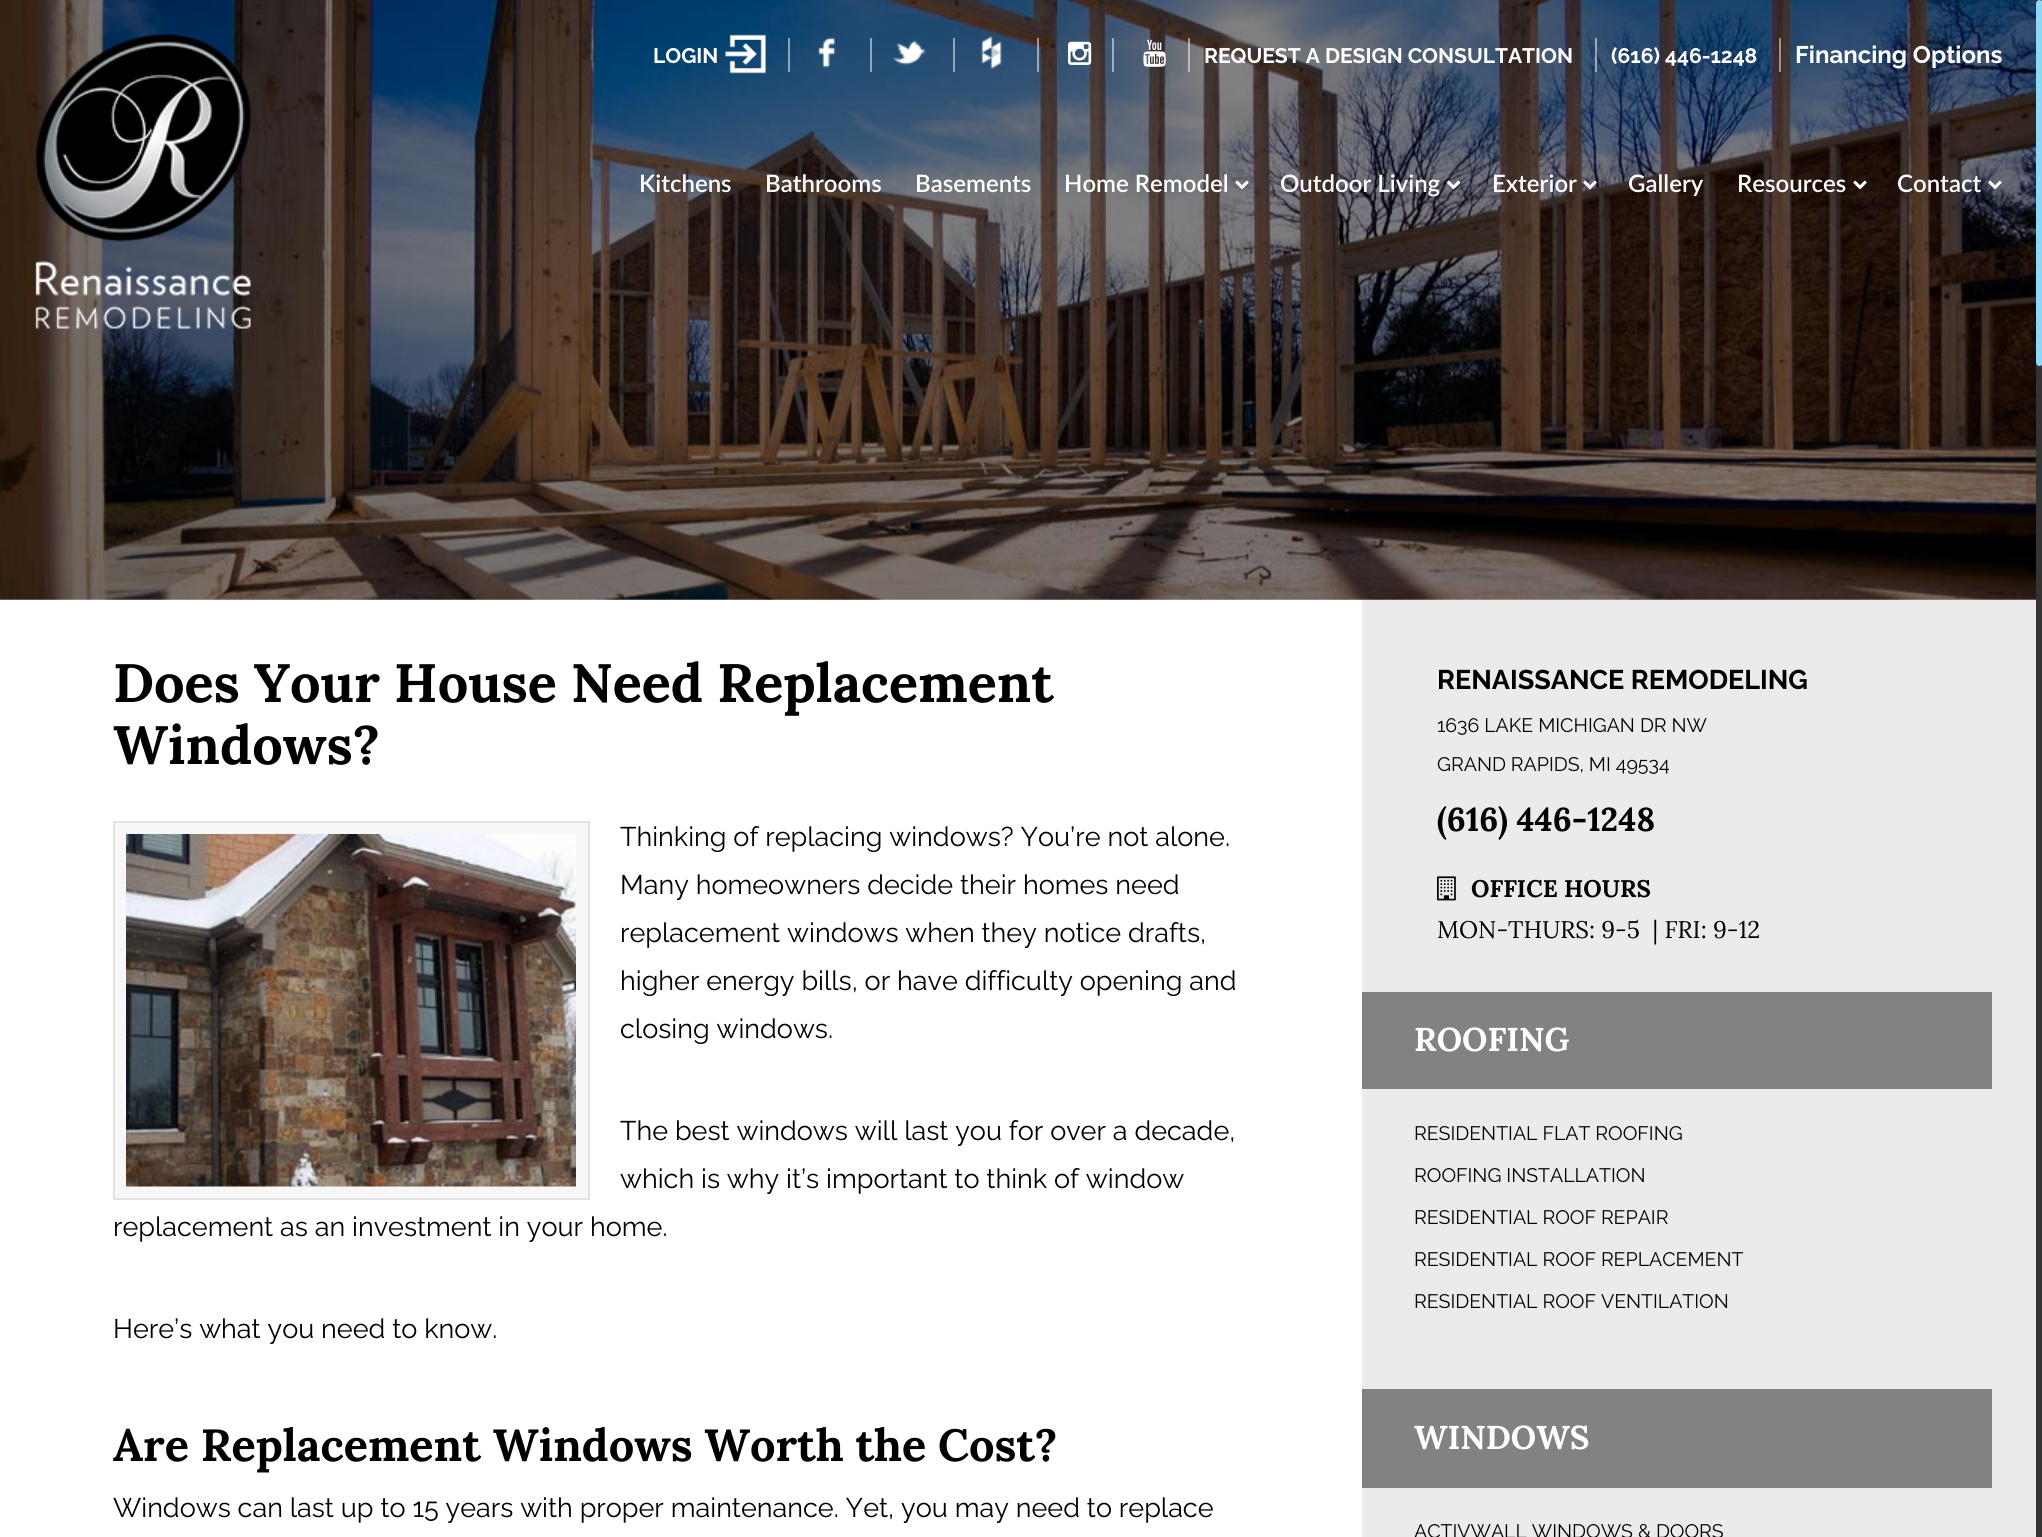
import math
import cairo

surface = cairo.ImageSurface(cairo.FORMAT_RGB24, 2042, 1537)
cr = cairo.Context(surface)
options = cairo.FontOptions()
options.set_hint_metrics(cairo.HINT_METRICS_OFF)
options.set_hint_style(cairo.HINT_STYLE_NONE)
cr.set_font_options(options)
cr.set_miter_limit(4)


def rgb(code):
    cr.set_source_rgb(*(v / 255 for v in bytes.fromhex(code[-6:])))


def rrect(x, y, w, h, r):
    cr.new_sub_path()
    for i, (u, v) in enumerate([(x + w - r, y + h - r), (x + r, y + h - r), (x + r, y + r), (x + w - r, y + r)]):
        cr.arc(u, v, r, i * math.pi / 2, (i + 1) * math.pi / 2)
    cr.close_path()


def image(path, x, y, w, h):
    cr.save()
    cr.set_source_surface(cairo.ImageSurface.create_from_png(path), x, y)
    cr.rectangle(x, y, w, h)
    cr.fill()
    cr.restore()


rgb("#ffffff")
cr.paint()
image("img/1.png", 0, 0, 2036, 600)
image("img/2.png", 725, 34, 41, 40)
cr.set_source_rgba(1, 1, 1, 0.5)
cr.rectangle(788, 38, 2, 34)
cr.fill()
image("img/3.png", 818, 37, 18, 31)
cr.rectangle(870, 38, 2, 34)
cr.fill()
image("img/4.png", 892, 40, 34, 25)
cr.rectangle(953, 38, 2, 34)
cr.fill()
image("img/5.png", 981, 36, 22, 34)
cr.rectangle(1037, 38, 2, 34)
cr.fill()
image("img/6.png", 1068, 41, 24, 24)
cr.rectangle(1112, 38, 2, 34)
cr.fill()
image("img/7.png", 1143, 39, 23, 28)
cr.rectangle(1188, 38, 2, 34)
cr.fill()
cr.rectangle(1595, 38, 2, 34)
cr.fill()
cr.rectangle(1779, 38, 2, 34)
cr.fill()
rgb("#f7f7f7")
cr.rectangle(114, 822, 475, 377)
cr.fill_preserve()
rgb("#e2e2e2")
cr.stroke()
image("img/8.png", 126, 834, 450, 353)
rgb("#ebebeb")
cr.rectangle(1362, 600, 674, 937)
cr.fill()
image("img/9.png", 1437, 876, 19, 25)
for x, y, w, h, color in [
    (1362, 992, 630, 97, "#828282"),
    (1362, 1389, 630, 99, "#828282"),
    (2036, 0, 6, 1537, "#333333"),
]:
    rgb(color)
    cr.rectangle(x, y, w, h)
    cr.fill()
rgb("#8dd7f7")
rrect(2036, 0, 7, 366, 3.5)
cr.fill()
image("img/10.png", 35, 34, 216, 295)
image("img/11.png", 1235, 180, 14, 10)
image("img/12.png", 1446, 180, 15, 10)
image("img/13.png", 1583, 180, 14, 10)
image("img/14.png", 1853, 180, 14, 10)
image("img/15.png", 1988, 180, 14, 10)
cr.select_font_face("Raleway", cairo.FONT_SLANT_NORMAL, cairo.FONT_WEIGHT_BOLD)
cr.set_font_size(21)
rgb("#ffffff")
for x, y, s in [
    (653, 63, "LOGIN"),
    (1204, 63, "REQUEST A DESIGN CONSULTATION"),
    (1611, 63, "(616) 446-1248"),
]:
    cr.move_to(x, y)
    cr.show_text(s)
cr.set_font_size(24)
cr.move_to(1795, 63)
cr.show_text("Financing Options")
cr.select_font_face("Lora", cairo.FONT_SLANT_NORMAL, cairo.FONT_WEIGHT_BOLD)
cr.set_font_size(54)
rgb("#000000")
cr.move_to(113, 702)
cr.show_text("Does Your House Need Replacement")
cr.move_to(113, 764)
cr.show_text("Windows?")
cr.select_font_face("Raleway")
cr.set_font_size(27)
for x, y, s in [
    (620, 846, "Thinking of replacing windows? You’re not alone."),
    (620, 894, "Many homeowners decide their homes need"),
    (620, 942, "replacement windows when they notice drafts,"),
    (620, 990, "higher energy bills, or have difficulty opening and"),
    (620, 1038, "closing windows."),
    (620, 1140, "The best windows will last you for over a decade,"),
    (620, 1188, "which is why it’s important to think of window"),
    (113, 1236, "replacement as an investment in your home."),
    (113, 1338, "Here’s what you need to know."),
]:
    cr.move_to(x, y)
    cr.show_text(s)
cr.select_font_face("Lora", cairo.FONT_SLANT_NORMAL, cairo.FONT_WEIGHT_BOLD)
cr.set_font_size(45)
cr.move_to(113, 1461)
cr.show_text("Are Replacement Windows Worth the Cost?")
cr.select_font_face("Raleway")
cr.set_font_size(27)
cr.move_to(113, 1517)
cr.show_text("Windows can last up to 15 years with proper maintenance. Yet, you may need to replace")
cr.select_font_face("Raleway", cairo.FONT_SLANT_NORMAL, cairo.FONT_WEIGHT_BOLD)
cr.move_to(1437, 689)
cr.show_text("RENAISSANCE REMODELING")
cr.select_font_face("Raleway")
cr.set_font_size(19.5)
cr.move_to(1437, 732)
cr.show_text("1636 LAKE MICHIGAN DR NW")
cr.move_to(1437, 771)
cr.show_text("GRAND RAPIDS, MI 49534")
cr.select_font_face("Lora", cairo.FONT_SLANT_NORMAL, cairo.FONT_WEIGHT_BOLD)
cr.set_font_size(33)
cr.move_to(1437, 831)
cr.show_text("(616) 446-1248")
cr.set_font_size(24)
cr.move_to(1471, 897)
cr.show_text("OFFICE HOURS")
cr.select_font_face("Lora")
cr.move_to(1437, 938)
cr.show_text("MON-THURS: 9-5  | FRI: 9-12")
cr.select_font_face("Lora", cairo.FONT_SLANT_NORMAL, cairo.FONT_WEIGHT_BOLD)
cr.set_font_size(33)
rgb("#ffffff")
cr.move_to(1414, 1051)
cr.show_text("ROOFING")
cr.select_font_face("Raleway")
cr.set_font_size(19.5)
rgb("#000000")
for x, y, s in [
    (1414, 1140, "RESIDENTIAL FLAT ROOFING"),
    (1414, 1182, "ROOFING INSTALLATION"),
    (1414, 1224, "RESIDENTIAL ROOF REPAIR"),
    (1414, 1266, "RESIDENTIAL ROOF REPLACEMENT"),
    (1414, 1308, "RESIDENTIAL ROOF VENTILATION"),
]:
    cr.move_to(x, y)
    cr.show_text(s)
cr.select_font_face("Lora", cairo.FONT_SLANT_NORMAL, cairo.FONT_WEIGHT_BOLD)
cr.set_font_size(33)
rgb("#ffffff")
cr.move_to(1414, 1449)
cr.show_text("WINDOWS")
cr.select_font_face("Raleway")
cr.set_font_size(19.5)
rgb("#000000")
cr.move_to(1414, 1538)
cr.show_text("ACTIVWALL WINDOWS & DOORS")
cr.select_font_face("Lato SemiBold")
cr.set_font_size(24)
rgb("#ffffff")
for x, y, s in [
    (639, 192, "Kitchens"),
    (765, 192, "Bathrooms"),
    (915, 192, "Basements"),
    (1064, 192, "Home Remodel"),
    (1280, 192, "Outdoor Living"),
    (1492, 192, "Exterior"),
    (1628, 192, "Gallery"),
    (1737, 192, "Resources"),
    (1897, 192, "Contact"),
]:
    cr.move_to(x, y)
    cr.show_text(s)
surface.write_to_png("page.png")
